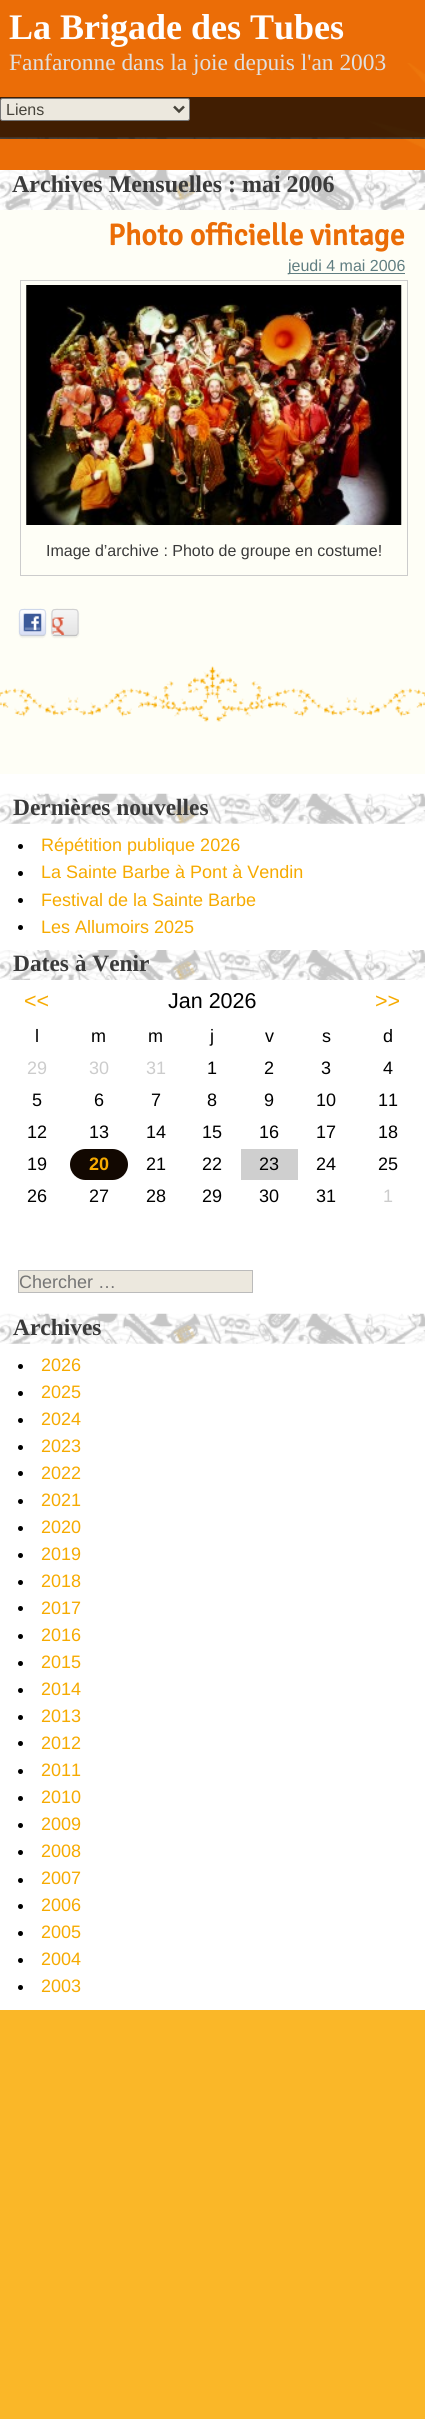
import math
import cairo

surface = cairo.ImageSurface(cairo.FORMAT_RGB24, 425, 2419)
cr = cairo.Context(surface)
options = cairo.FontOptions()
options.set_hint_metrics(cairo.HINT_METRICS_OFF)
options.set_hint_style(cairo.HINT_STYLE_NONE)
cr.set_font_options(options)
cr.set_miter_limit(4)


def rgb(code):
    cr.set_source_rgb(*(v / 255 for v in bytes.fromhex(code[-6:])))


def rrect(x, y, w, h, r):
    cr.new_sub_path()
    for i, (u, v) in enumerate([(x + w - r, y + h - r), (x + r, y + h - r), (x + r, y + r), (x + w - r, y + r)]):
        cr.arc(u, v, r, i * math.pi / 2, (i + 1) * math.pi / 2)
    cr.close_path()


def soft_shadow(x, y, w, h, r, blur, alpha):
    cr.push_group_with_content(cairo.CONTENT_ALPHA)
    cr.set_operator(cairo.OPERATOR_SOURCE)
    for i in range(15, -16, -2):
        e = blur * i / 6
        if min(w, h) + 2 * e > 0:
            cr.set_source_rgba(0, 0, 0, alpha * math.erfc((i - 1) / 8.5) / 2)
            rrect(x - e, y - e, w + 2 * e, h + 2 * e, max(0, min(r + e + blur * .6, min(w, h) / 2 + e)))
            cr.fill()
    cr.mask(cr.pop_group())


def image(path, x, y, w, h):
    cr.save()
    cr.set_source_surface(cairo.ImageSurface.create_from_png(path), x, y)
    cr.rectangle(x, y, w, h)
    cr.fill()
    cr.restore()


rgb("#fab728")
cr.paint()
image("img/1.png", 0, 0, 425, 170)
image("img/2.png", 313, 63, 112, 107)
image("img/3.png", 0, 137, 425, 2)
cr.set_source_rgba(0, 0, 0, 0.72)
cr.rectangle(0, 97, 425, 42)
cr.fill()
rgb("#ece8de")
rrect(0.5, 98.5, 189, 22, 2)
cr.fill_preserve()
rgb("#767676")
cr.set_line_width(1)
cr.stroke()
cr.new_path()
cr.move_to(174, 106.5)
cr.line_to(179, 111.5)
cr.line_to(184, 106.5)
rgb("#46433a")
cr.set_line_width(2.5)
cr.stroke()
rgb("#ffffff")
cr.rectangle(0, 774, 425, 20)
cr.fill()
rgb("#fefef6")
cr.rectangle(0, 210, 425, 564)
cr.fill()
image("img/4.png", 0, 170, 425, 40)
image("img/5.png", 0, 666, 425, 56)
rgb("#617e81")
cr.rectangle(288, 273, 117, 1)
cr.fill()
cr.rectangle(20.5, 280.5, 387, 295)
rgb("#cccccc")
cr.set_line_width(1)
cr.stroke()
image("img/6.png", 26, 285, 376, 240)
rgb("#000000")
soft_shadow(19, 610, 27, 28, 4, 0.5, 0.05)
cr.save()
rrect(19, 609, 27, 27, 4)
cr.clip()
gradient = cairo.LinearGradient(33, 585, 33, 610)
gradient.add_color_stop_rgba(0, 1, 1, 1, 1)
gradient.add_color_stop_rgba(1, 0.847, 0.871, 0.957, 1)
cr.set_source(gradient)
cr.rectangle(19, 609, 27, 1)
cr.fill()
gradient = cairo.LinearGradient(33, 610, 33, 635)
gradient.add_color_stop_rgba(0, 1, 1, 1, 1)
gradient.add_color_stop_rgba(1, 0.847, 0.871, 0.957, 1)
cr.set_source(gradient)
cr.rectangle(19, 610, 27, 25)
cr.fill()
gradient = cairo.LinearGradient(33, 635, 33, 660)
gradient.add_color_stop_rgba(0, 1, 1, 1, 1)
gradient.add_color_stop_rgba(1, 0.847, 0.871, 0.957, 1)
cr.set_source(gradient)
cr.rectangle(19, 635, 27, 1)
cr.fill()
cr.restore()
cr.new_path()
cr.move_to(44.5, 634.5)
cr.curve_to(44, 635.5, 43.5, 635.5, 42.5, 635.5)
cr.line_to(22.5, 635.5)
cr.curve_to(21.5, 635.5, 21, 635.5, 20.5, 634.5)
cr.set_source_rgba(0.741, 0.761, 0.796, 0.8)
cr.set_line_width(1.2)
cr.stroke()
cr.new_path()
cr.move_to(20.5, 634.5)
cr.curve_to(19, 633.5, 19.5, 631, 19.5, 629)
cr.line_to(19.5, 622.5)
cr.curve_to(19.5, 607.5, 17.5, 609.5, 32.5, 609.5)
cr.curve_to(47.5, 609.5, 45.5, 607.5, 45.5, 622.5)
cr.line_to(45.5, 629)
cr.curve_to(45.5, 631, 46, 633.5, 44.5, 634.5)
cr.set_source_rgba(0.792, 0.831, 0.906, 0.8)
cr.stroke()
image("img/7.png", 23, 613, 19, 19)
rgb("#000000")
soft_shadow(51, 610, 28, 28, 4, 0.5, 0.05)
cr.save()
rrect(51, 609, 28, 27, 4)
cr.clip()
gradient = cairo.LinearGradient(65, 585, 65, 610)
gradient.add_color_stop_rgba(0, 0.961, 0.961, 0.961, 1)
gradient.add_color_stop_rgba(1, 0.894, 0.894, 0.894, 1)
cr.set_source(gradient)
cr.rectangle(51, 609, 28, 1)
cr.fill()
gradient = cairo.LinearGradient(65, 610, 65, 635)
gradient.add_color_stop_rgba(0, 0.961, 0.961, 0.961, 1)
gradient.add_color_stop_rgba(1, 0.894, 0.894, 0.894, 1)
cr.set_source(gradient)
cr.rectangle(51, 610, 28, 25)
cr.fill()
gradient = cairo.LinearGradient(65, 635, 65, 660)
gradient.add_color_stop_rgba(0, 0.961, 0.961, 0.961, 1)
gradient.add_color_stop_rgba(1, 0.894, 0.894, 0.894, 1)
cr.set_source(gradient)
cr.rectangle(51, 635, 28, 1)
cr.fill()
cr.restore()
cr.new_path()
cr.move_to(77, 634.5)
cr.curve_to(76.5, 635.5, 76, 635.5, 75, 635.5)
cr.line_to(55, 635.5)
cr.curve_to(54, 635.5, 53.5, 635.5, 53, 634.5)
cr.set_source_rgba(0.702, 0.702, 0.702, 0.8)
cr.stroke()
cr.new_path()
cr.move_to(53, 634.5)
cr.curve_to(51.5, 633.5, 52, 631, 52, 629)
cr.line_to(52, 622.5)
cr.curve_to(52, 607.5, 50, 609.5, 65, 609.5)
cr.curve_to(80, 609.5, 78, 607.5, 78, 622.5)
cr.line_to(78, 629)
cr.curve_to(78, 631, 78.5, 633.5, 77, 634.5)
cr.set_source_rgba(0.8, 0.8, 0.8, 0.8)
cr.stroke()
image("img/8.png", 52, 617, 13, 18)
rgb("#ffffff")
cr.rectangle(0, 823, 425, 127)
cr.fill()
image("img/9.png", 0, 793, 425, 31)
rgb("#000000")
cr.arc(20.5, 846.5, 2.5, 0, 2 * math.pi)
cr.fill()
cr.arc(20.5, 873.5, 2.5, 0, 2 * math.pi)
cr.fill()
cr.arc(20.5, 900.5, 2.5, 0, 2 * math.pi)
cr.fill()
cr.arc(20.5, 927.5, 2.5, 0, 2 * math.pi)
cr.fill()
rgb("#ffffff")
cr.rectangle(0, 980, 425, 334)
cr.fill()
image("img/10.png", 0, 950, 425, 30)
rgb("#120801")
rrect(70, 1149, 58, 31, 15.5)
cr.fill()
rgb("#cfcfcf")
cr.rectangle(241, 1149, 57, 31)
cr.fill()
rgb("#ece8de")
cr.rectangle(18.5, 1270.5, 234, 22)
cr.fill_preserve()
rgb("#bbbbbb")
cr.set_line_width(1)
cr.stroke()
rgb("#ffffff")
cr.rectangle(0, 1343, 425, 667)
cr.fill()
image("img/11.png", 0, 1313, 425, 31)
rgb("#000000")
cr.arc(20.5, 1366.5, 2.5, 0, 2 * math.pi)
cr.fill()
cr.arc(20.5, 1393.5, 2.5, 0, 2 * math.pi)
cr.fill()
cr.arc(20.5, 1420.5, 2.5, 0, 2 * math.pi)
cr.fill()
cr.arc(20.5, 1447.5, 2.5, 0, 2 * math.pi)
cr.fill()
cr.arc(20.5, 1473.5, 2.5, 0, 2 * math.pi)
cr.fill()
cr.arc(20.5, 1501.5, 2.5, 0, 2 * math.pi)
cr.fill()
cr.arc(20.5, 1528.5, 2.5, 0, 2 * math.pi)
cr.fill()
cr.arc(20.5, 1555.5, 2.5, 0, 2 * math.pi)
cr.fill()
cr.arc(20.5, 1582.5, 2.5, 0, 2 * math.pi)
cr.fill()
cr.arc(20.5, 1608.5, 2.5, 0, 2 * math.pi)
cr.fill()
cr.arc(20.5, 1636.5, 2.5, 0, 2 * math.pi)
cr.fill()
cr.arc(20.5, 1663.5, 2.5, 0, 2 * math.pi)
cr.fill()
cr.arc(20.5, 1690.5, 2.5, 0, 2 * math.pi)
cr.fill()
cr.arc(20.5, 1717.5, 2.5, 0, 2 * math.pi)
cr.fill()
cr.arc(20.5, 1743.5, 2.5, 0, 2 * math.pi)
cr.fill()
cr.arc(20.5, 1771.5, 2.5, 0, 2 * math.pi)
cr.fill()
cr.arc(20.5, 1798.5, 2.5, 0, 2 * math.pi)
cr.fill()
cr.arc(20.5, 1825.5, 2.5, 0, 2 * math.pi)
cr.fill()
cr.arc(20.5, 1852.5, 2.5, 0, 2 * math.pi)
cr.fill()
cr.arc(20.5, 1880.5, 2.5, 0, 2 * math.pi)
cr.fill()
cr.arc(20.5, 1906.5, 2.5, 0, 2 * math.pi)
cr.fill()
cr.arc(20.5, 1933.5, 2.5, 0, 2 * math.pi)
cr.fill()
cr.arc(20.5, 1960.5, 2.5, 0, 2 * math.pi)
cr.fill()
cr.arc(20.5, 1987.5, 2.5, 0, 2 * math.pi)
cr.fill()
cr.select_font_face("Liberation Serif", cairo.FONT_SLANT_NORMAL, cairo.FONT_WEIGHT_BOLD)
cr.set_font_size(36)
rgb("#ffffff")
cr.move_to(9, 39)
cr.show_text("La Brigade des Tubes")
cr.select_font_face("Liberation Serif")
cr.set_font_size(23.4)
rgb("#e0e0e0")
cr.move_to(9, 70)
cr.show_text("Fanfaronne dans la joie depuis l'an 2003")
cr.select_font_face("Liberation Sans")
cr.set_font_size(16)
rgb("#46433a")
cr.move_to(6, 115)
cr.show_text("Liens")
cr.select_font_face("Liberation Serif", cairo.FONT_SLANT_NORMAL, cairo.FONT_WEIGHT_BOLD)
cr.set_font_size(24)
rgb("#3a3a3a")
cr.move_to(12, 192)
cr.show_text("Archives Mensuelles : mai 2006")
cr.select_font_face("Signika", cairo.FONT_SLANT_NORMAL, cairo.FONT_WEIGHT_BOLD)
cr.set_font_size(30)
rgb("#eb6d07")
cr.move_to(108, 245)
cr.show_text("Photo officielle vintage")
cr.select_font_face("Liberation Sans")
cr.set_font_size(16)
rgb("#607e81")
cr.move_to(288, 271)
cr.show_text("jeudi 4 mai 2006")
rgb("#3a3a3a")
cr.move_to(46, 556)
cr.show_text("Image d’archive : Photo de groupe en costume!")
cr.select_font_face("Liberation Serif", cairo.FONT_SLANT_NORMAL, cairo.FONT_WEIGHT_BOLD)
cr.set_font_size(23.4)
cr.move_to(13, 815)
cr.show_text("Dernières nouvelles")
cr.select_font_face("Liberation Sans")
cr.set_font_size(18)
rgb("#f6aa00")
for x, y, s in [
    (41, 851, "Répétition publique 2026"),
    (41, 878, "La Sainte Barbe à Pont à Vendin"),
    (41, 906, "Festival de la Sainte Barbe"),
    (41, 933, "Les Allumoirs 2025"),
]:
    cr.move_to(x, y)
    cr.show_text(s)
cr.select_font_face("Liberation Serif", cairo.FONT_SLANT_NORMAL, cairo.FONT_WEIGHT_BOLD)
cr.set_font_size(23.4)
rgb("#3a3a3a")
cr.move_to(13, 971)
cr.show_text("Dates à Venir")
cr.select_font_face("Liberation Sans")
cr.set_font_size(21.5)
rgb("#f6aa00")
cr.move_to(24, 1008)
cr.show_text("<<")
rgb("#000000")
cr.move_to(168, 1008)
cr.show_text("Jan 2026")
rgb("#f6aa00")
cr.move_to(375, 1008)
cr.show_text(">>")
cr.set_font_size(18)
rgb("#000000")
for x, y, s in [
    (35, 1042, "l"),
    (91, 1042, "m"),
    (148, 1042, "m"),
    (210, 1042, "j"),
    (265, 1042, "v"),
    (322, 1042, "s"),
    (383, 1042, "d"),
]:
    cr.move_to(x, y)
    cr.show_text(s)
rgb("#cccccc")
for x, y, s in [
    (27, 1074, "29"),
    (89, 1074, "30"),
    (146, 1074, "31"),
]:
    cr.move_to(x, y)
    cr.show_text(s)
rgb("#000000")
for x, y, s in [
    (207, 1074, "1"),
    (264, 1074, "2"),
    (321, 1074, "3"),
    (383, 1074, "4"),
    (32, 1106, "5"),
    (94, 1106, "6"),
    (151, 1106, "7"),
    (207, 1106, "8"),
    (264, 1106, "9"),
    (316, 1106, "10"),
    (378, 1106, "11"),
    (27, 1138, "12"),
    (89, 1138, "13"),
    (146, 1138, "14"),
    (202, 1138, "15"),
    (259, 1138, "16"),
    (316, 1138, "17"),
    (378, 1138, "18"),
    (27, 1170, "19"),
]:
    cr.move_to(x, y)
    cr.show_text(s)
cr.select_font_face("Liberation Sans", cairo.FONT_SLANT_NORMAL, cairo.FONT_WEIGHT_BOLD)
rgb("#f6aa00")
cr.move_to(89, 1170)
cr.show_text("20")
cr.select_font_face("Liberation Sans")
rgb("#000000")
for x, y, s in [
    (146, 1170, "21"),
    (202, 1170, "22"),
    (259, 1170, "23"),
    (316, 1170, "24"),
    (378, 1170, "25"),
    (27, 1202, "26"),
    (89, 1202, "27"),
    (146, 1202, "28"),
    (202, 1202, "29"),
    (259, 1202, "30"),
    (316, 1202, "31"),
]:
    cr.move_to(x, y)
    cr.show_text(s)
rgb("#cccccc")
cr.move_to(383, 1202)
cr.show_text("1")
rgb("#757575")
cr.move_to(19, 1288)
cr.show_text("Chercher …")
cr.select_font_face("Liberation Serif", cairo.FONT_SLANT_NORMAL, cairo.FONT_WEIGHT_BOLD)
cr.set_font_size(23.4)
rgb("#3a3a3a")
cr.move_to(13, 1335)
cr.show_text("Archives")
cr.select_font_face("Liberation Sans")
cr.set_font_size(18)
rgb("#f6aa00")
for x, y, s in [
    (41, 1371, "2026"),
    (41, 1398, "2025"),
    (41, 1425, "2024"),
    (41, 1452, "2023"),
    (41, 1479, "2022"),
    (41, 1506, "2021"),
    (41, 1533, "2020"),
    (41, 1560, "2019"),
    (41, 1587, "2018"),
    (41, 1614, "2017"),
    (41, 1641, "2016"),
    (41, 1668, "2015"),
    (41, 1695, "2014"),
    (41, 1722, "2013"),
    (41, 1749, "2012"),
    (41, 1776, "2011"),
    (41, 1803, "2010"),
    (41, 1830, "2009"),
    (41, 1857, "2008"),
    (41, 1884, "2007"),
    (41, 1911, "2006"),
    (41, 1938, "2005"),
    (41, 1965, "2004"),
    (41, 1992, "2003"),
]:
    cr.move_to(x, y)
    cr.show_text(s)
surface.write_to_png("page.png")
